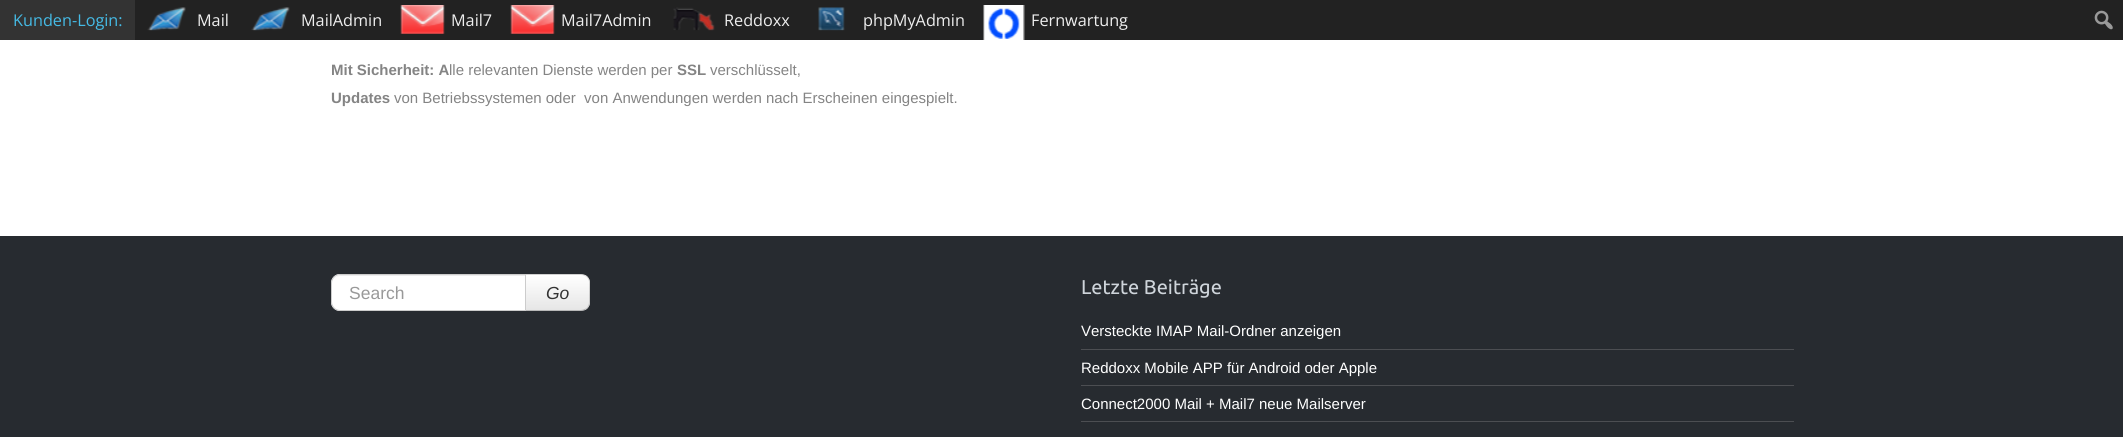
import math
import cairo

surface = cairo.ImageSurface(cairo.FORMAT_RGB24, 2123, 437)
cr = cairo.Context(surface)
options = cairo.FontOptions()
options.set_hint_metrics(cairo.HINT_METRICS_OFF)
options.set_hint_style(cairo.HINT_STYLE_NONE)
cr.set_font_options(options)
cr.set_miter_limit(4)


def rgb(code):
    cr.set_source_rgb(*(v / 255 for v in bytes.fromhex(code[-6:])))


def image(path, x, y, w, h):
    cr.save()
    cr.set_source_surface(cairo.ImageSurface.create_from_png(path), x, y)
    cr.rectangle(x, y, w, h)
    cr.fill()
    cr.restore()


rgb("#ffffff")
cr.paint()
rgb("#222222")
cr.rectangle(135, 0, 1988, 40)
cr.fill()
rgb("#333333")
cr.rectangle(0, 0, 135, 40)
cr.fill()
image("img/1.png", 147, 7, 39, 24)
image("img/2.png", 251, 7, 39, 24)
image("img/3.png", 400, 5, 45, 29)
image("img/3.png", 510, 5, 45, 29)
image("img/4.png", 673, 7, 42, 24)
image("img/5.png", 818, 7, 27, 24)
image("img/6.png", 983, 5, 42, 35)
image("img/7.png", 2094, 10, 19, 20)
rgb("#272b30")
cr.rectangle(0, 236, 2123, 201)
cr.fill()
rgb("#f5f5f5")
cr.new_path()
cr.move_to(525, 274)
cr.line_to(581, 274)
cr.curve_to(586, 274, 590, 278, 590, 283)
cr.line_to(590, 302)
cr.curve_to(590, 307, 586, 311, 581, 311)
cr.line_to(525, 311)
cr.close_path()
cr.fill()
cr.save()
cr.new_path()
cr.move_to(525, 274)
cr.line_to(581, 274)
cr.curve_to(586, 274, 590, 278, 590, 283)
cr.line_to(590, 302)
cr.curve_to(590, 307, 586, 311, 581, 311)
cr.line_to(525, 311)
cr.close_path()
cr.clip()
gradient = cairo.LinearGradient(558, 275, 558, 310)
gradient.add_color_stop_rgba(0, 1, 1, 1, 1)
gradient.add_color_stop_rgba(1, 0.902, 0.902, 0.902, 1)
cr.set_source(gradient)
cr.rectangle(526, 275, 64, 35)
cr.fill()
cr.restore()
cr.set_source_rgba(0, 0, 0, 0.15)
cr.new_path()
cr.move_to(587, 276)
cr.curve_to(586, 275, 583, 274, 581, 274)
cr.line_to(525, 274)
cr.line_to(526, 275)
cr.line_to(581, 275)
cr.curve_to(583, 275, 585, 276, 587, 277)
cr.close_path()
cr.fill()
cr.new_path()
cr.move_to(587.5, 276.5)
cr.curve_to(589, 278, 590, 280, 590, 282)
cr.line_to(590, 302)
cr.curve_to(590, 304.5, 589, 307, 587, 308.5)
cr.line_to(586.5, 308)
cr.curve_to(588, 306.5, 589, 304.5, 589, 302)
cr.line_to(589, 282)
cr.curve_to(589, 280, 588, 278.5, 586.5, 277)
cr.close_path()
cr.fill()
cr.set_source_rgba(0, 0, 0, 0.25)
cr.new_path()
cr.move_to(587, 308)
cr.curve_to(586, 310, 583, 311, 581, 311)
cr.line_to(525, 311)
cr.line_to(526, 310)
cr.line_to(581, 310)
cr.curve_to(583, 310, 585, 309, 587, 308)
cr.close_path()
cr.fill()
rgb("#ffffff")
cr.new_path()
cr.move_to(340, 274)
cr.line_to(526, 274)
cr.line_to(526, 311)
cr.line_to(340, 311)
cr.curve_to(335, 311, 331, 307, 331, 302)
cr.line_to(331, 283)
cr.curve_to(331, 278, 335, 274, 340, 274)
cr.close_path()
cr.fill()
rgb("#ececec")
cr.new_path()
cr.move_to(340, 276)
cr.line_to(525, 276)
cr.line_to(525, 275)
cr.line_to(341, 275)
cr.curve_to(338, 275, 336, 277, 334, 279)
cr.curve_to(336, 277, 338, 276, 340, 276)
cr.close_path()
cr.fill()
cr.new_path()
cr.move_to(340, 274.5)
cr.line_to(525.5, 274.5)
cr.line_to(525.5, 310.5)
cr.line_to(340, 310.5)
cr.curve_to(335.5, 310.5, 331.5, 306.5, 331.5, 302)
cr.line_to(331.5, 283)
cr.curve_to(331.5, 278.5, 335.5, 274.5, 340, 274.5)
cr.close_path()
rgb("#cccccc")
cr.set_line_width(1)
cr.stroke()
for x, y, w, h, color in [
    (1081, 349, 713, 1, "#4c4e52"),
    (1081, 385, 713, 1, "#4c4e52"),
    (1081, 421, 713, 1, "#4c4e52"),
]:
    rgb(color)
    cr.rectangle(x, y, w, h)
    cr.fill()
cr.select_font_face("Open Sans")
cr.set_font_size(16.25)
rgb("#45bbe6")
cr.move_to(13, 26)
cr.show_text("Kunden-Login:")
rgb("#eeeeee")
for x, y, s in [
    (197, 26, "Mail"),
    (301, 26, "MailAdmin"),
    (451, 26, "Mail7"),
    (561, 26, "Mail7Admin"),
    (724, 26, "Reddoxx"),
    (863, 26, "phpMyAdmin"),
    (1031, 26, "Fernwartung"),
]:
    cr.move_to(x, y)
    cr.show_text(s)
cr.select_font_face("Liberation Sans", cairo.FONT_SLANT_NORMAL, cairo.FONT_WEIGHT_BOLD)
cr.set_font_size(15)
rgb("#848484")
cr.move_to(331, 75)
cr.show_text("Mit Sicherheit: A")
cr.select_font_face("Liberation Sans")
cr.move_to(449, 75)
cr.show_text("lle relevanten Dienste werden per")
cr.select_font_face("Liberation Sans", cairo.FONT_SLANT_NORMAL, cairo.FONT_WEIGHT_BOLD)
cr.move_to(677, 75)
cr.show_text("SSL")
cr.select_font_face("Liberation Sans")
cr.move_to(710, 75)
cr.show_text("verschlüsselt,")
cr.select_font_face("Liberation Sans", cairo.FONT_SLANT_NORMAL, cairo.FONT_WEIGHT_BOLD)
cr.move_to(331, 103)
cr.show_text("Updates")
cr.select_font_face("Liberation Sans")
cr.move_to(394, 103)
cr.show_text("von Betriebssystemen oder  von Anwendungen werden nach Erscheinen eingespielt.")
cr.set_font_size(17.5)
rgb("#999999")
cr.move_to(349, 299)
cr.show_text("Search")
cr.select_font_face("Liberation Sans", cairo.FONT_SLANT_ITALIC)
rgb("#333333")
cr.move_to(546, 299)
cr.show_text("Go")
cr.select_font_face("Ubuntu")
cr.set_font_size(20)
rgb("#ced4da")
cr.move_to(1081, 294)
cr.show_text("Letzte Beiträge")
cr.select_font_face("Liberation Sans")
cr.set_font_size(15)
rgb("#ffffff")
for x, y, s in [
    (1081, 336, "Versteckte IMAP Mail-Ordner anzeigen"),
    (1081, 373, "Reddoxx Mobile APP für Android oder Apple"),
    (1081, 409, "Connect2000 Mail + Mail7 neue Mailserver"),
]:
    cr.move_to(x, y)
    cr.show_text(s)
surface.write_to_png("page.png")
